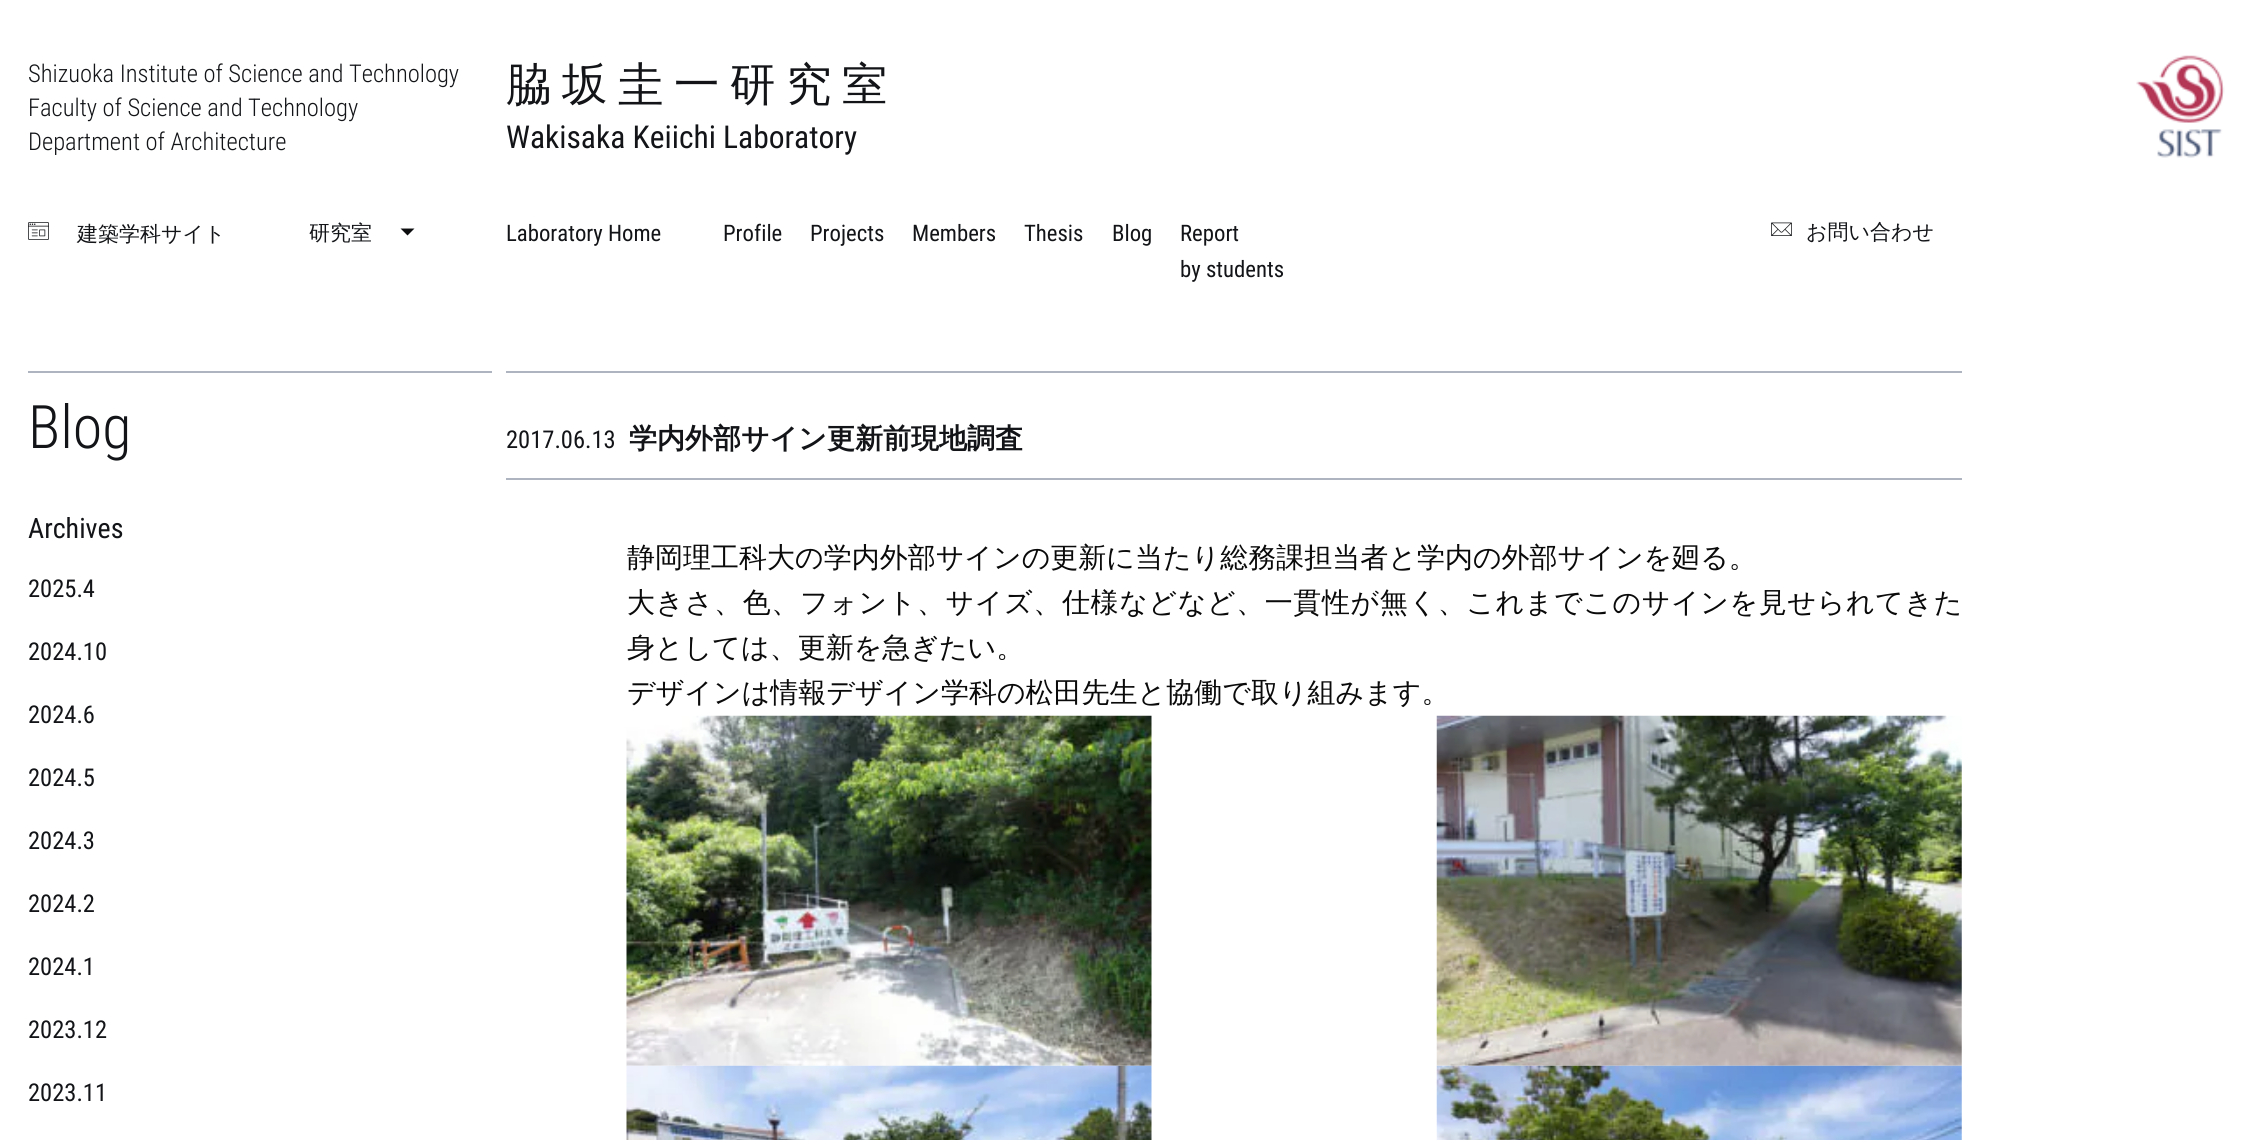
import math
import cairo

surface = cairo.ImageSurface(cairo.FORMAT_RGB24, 2254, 1140)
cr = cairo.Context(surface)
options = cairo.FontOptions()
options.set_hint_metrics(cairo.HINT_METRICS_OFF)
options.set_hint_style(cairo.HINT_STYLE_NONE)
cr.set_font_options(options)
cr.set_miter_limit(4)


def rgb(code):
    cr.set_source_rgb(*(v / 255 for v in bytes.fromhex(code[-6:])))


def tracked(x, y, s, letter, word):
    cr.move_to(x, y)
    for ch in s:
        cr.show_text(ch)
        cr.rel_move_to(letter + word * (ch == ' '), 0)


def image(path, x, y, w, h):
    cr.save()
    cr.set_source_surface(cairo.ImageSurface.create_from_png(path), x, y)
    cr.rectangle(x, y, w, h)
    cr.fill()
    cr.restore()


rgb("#ffffff")
cr.paint()
image("img/1.png", 2136, 55, 89, 103)
image("img/2.png", 28, 222, 21, 18)
rgb("#0c0d0f")
cr.new_path()
cr.move_to(400.5, 228.5)
cr.line_to(414.5, 228.5)
cr.line_to(407.5, 235.5)
cr.close_path()
cr.fill()
rgb("#aeb4c0")
cr.rectangle(28, 371, 464, 2)
cr.fill()
image("img/3.png", 1771, 222, 21, 14)
cr.rectangle(506, 371, 1456, 2)
cr.fill()
cr.rectangle(506, 478, 1456, 2)
cr.fill()
image("img/4.png", 626, 715, 526, 351)
image("img/5.png", 1436, 715, 526, 351)
image("img/6.png", 626, 1065, 526, 75)
image("img/7.png", 1436, 1065, 526, 75)
cr.select_font_face("Roboto Condensed Light")
cr.set_font_size(24.5)
rgb("#121417")
for x, y, s in [
    (28, 82, "Shizuoka Institute of Science and Technology"),
    (28, 116, "Faculty of Science and Technology"),
    (28, 150, "Department of Architecture"),
]:
    cr.move_to(x, y)
    cr.show_text(s)
cr.select_font_face("WenQuanYi Zen Hei Medium")
cr.set_font_size(45.5)
tracked(506, 100, "脇坂圭一研究室", 10.5, 0)
cr.select_font_face("Roboto Condensed")
cr.set_font_size(31.5)
cr.move_to(506, 148)
cr.show_text("Wakisaka Keiichi Laboratory")
cr.select_font_face("WenQuanYi Zen Hei Medium")
cr.set_font_size(21)
cr.move_to(77, 241)
cr.show_text("建築学科サイト")
cr.move_to(309, 240)
cr.show_text("研究室")
cr.select_font_face("Roboto Condensed")
cr.set_font_size(22.75)
for x, y, s in [
    (506, 241, "Laboratory Home"),
    (723, 241, "Profile"),
    (810, 241, "Projects"),
    (912, 241, "Members"),
    (1024, 241, "Thesis"),
    (1112, 241, "Blog"),
    (1180, 241, "Report"),
    (1180, 277, "by students"),
]:
    cr.move_to(x, y)
    cr.show_text(s)
cr.select_font_face("WenQuanYi Zen Hei Medium")
cr.set_font_size(21)
cr.move_to(1806, 239)
cr.show_text("お問い合わせ")
cr.select_font_face("Roboto Condensed Light")
cr.set_font_size(60)
cr.move_to(28, 448)
cr.show_text("Blog")
cr.select_font_face("Roboto Condensed")
cr.set_font_size(28)
cr.move_to(28, 538)
cr.show_text("Archives")
cr.set_font_size(24.5)
for x, y, s in [
    (28, 597, "2025.4"),
    (28, 660, "2024.10"),
    (28, 723, "2024.6"),
    (28, 786, "2024.5"),
    (28, 849, "2024.3"),
    (28, 912, "2024.2"),
    (28, 975, "2024.1"),
    (28, 1038, "2023.12"),
    (28, 1101, "2023.11"),
    (506, 448, "2017.06.13"),
]:
    cr.move_to(x, y)
    cr.show_text(s)
cr.select_font_face("WenQuanYi Zen Hei", cairo.FONT_SLANT_NORMAL, cairo.FONT_WEIGHT_BOLD)
cr.set_font_size(28)
cr.move_to(629, 448)
cr.show_text("学内外部サイン更新前現地調査")
cr.select_font_face("WenQuanYi Zen Hei Medium")
rgb("#0a0a0a")
cr.move_to(627, 567)
cr.show_text("静岡理工科大の学内外部サインの更新に当たり総務課担当者と学内の外部サインを廻る。")
tracked(627, 612, "大きさ、色、フォント、サイズ、仕様などなど、一貫性が無く、これまでこのサインを見せられてきた", 0.6, 0)
cr.move_to(627, 657)
cr.show_text("身としては、更新を急ぎたい。")
cr.move_to(627, 702)
cr.show_text("デザインは情報デザイン学科の松田先生と協働で取り組みます。")
surface.write_to_png("page.png")
